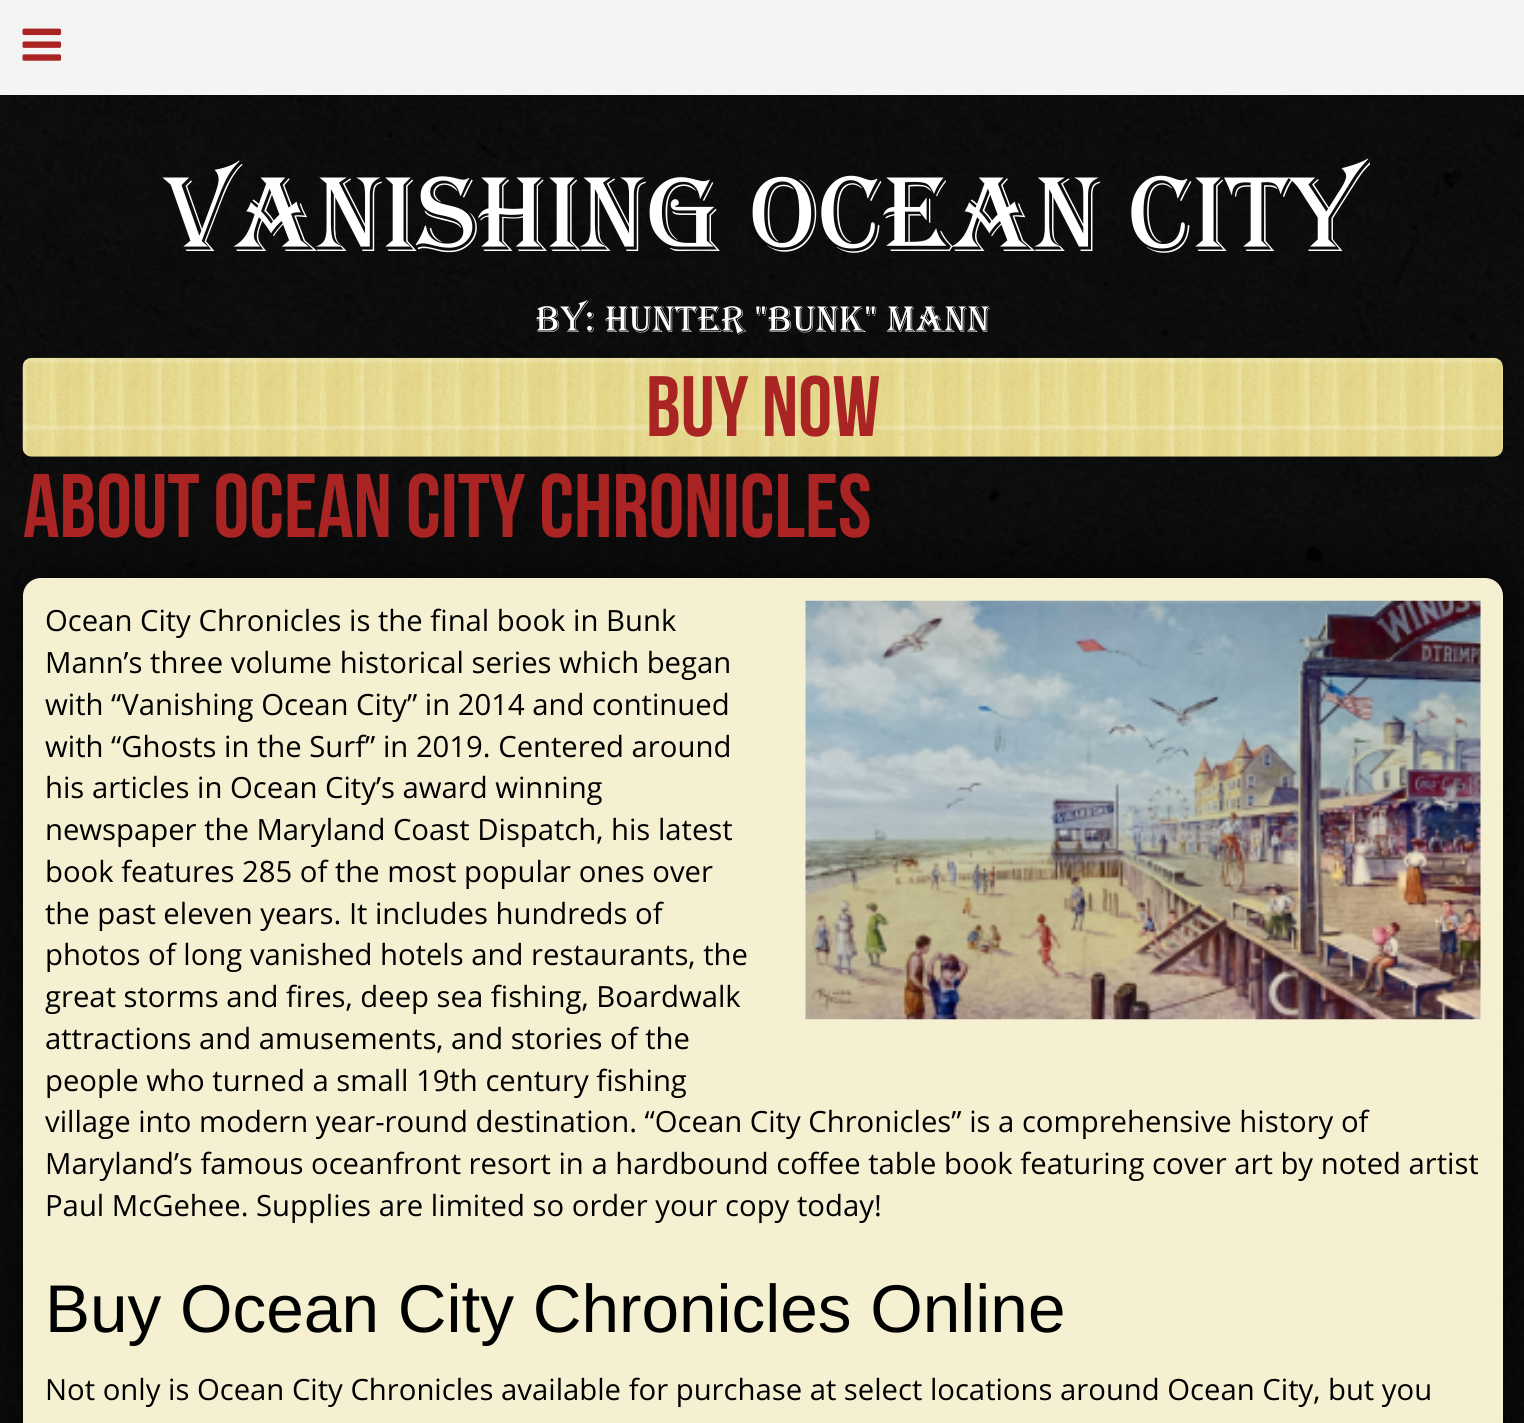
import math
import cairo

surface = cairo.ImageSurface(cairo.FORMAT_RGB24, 1524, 1423)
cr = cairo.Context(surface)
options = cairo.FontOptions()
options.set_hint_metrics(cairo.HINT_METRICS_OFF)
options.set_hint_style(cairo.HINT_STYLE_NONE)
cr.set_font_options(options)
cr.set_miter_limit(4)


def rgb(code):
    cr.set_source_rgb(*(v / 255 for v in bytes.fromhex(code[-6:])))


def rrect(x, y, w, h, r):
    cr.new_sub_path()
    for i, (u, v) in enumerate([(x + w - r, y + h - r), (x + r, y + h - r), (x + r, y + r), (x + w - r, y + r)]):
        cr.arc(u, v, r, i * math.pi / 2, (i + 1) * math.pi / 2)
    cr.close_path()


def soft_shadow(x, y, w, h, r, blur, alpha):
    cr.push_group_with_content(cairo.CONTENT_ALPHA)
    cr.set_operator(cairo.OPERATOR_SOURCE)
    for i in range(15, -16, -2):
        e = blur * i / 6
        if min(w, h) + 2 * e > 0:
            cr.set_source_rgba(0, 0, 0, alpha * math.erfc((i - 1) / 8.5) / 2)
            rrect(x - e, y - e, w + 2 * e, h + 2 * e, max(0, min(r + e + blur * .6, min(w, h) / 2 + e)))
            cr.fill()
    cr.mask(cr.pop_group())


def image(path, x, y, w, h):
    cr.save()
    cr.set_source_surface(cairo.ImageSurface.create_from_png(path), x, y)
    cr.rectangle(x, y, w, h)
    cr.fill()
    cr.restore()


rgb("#ffffff")
cr.paint()
image("img/1.png", 0, 95, 1524, 1328)
rgb("#f4f4f4")
cr.rectangle(0, 0, 1524, 95)
cr.fill()
image("img/2.png", 22, 28, 40, 33)
image("img/3.png", 22, 357, 1481, 100)
rgb("#000000")
soft_shadow(23, 578, 1489, 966, 23, 32.5, 0.75)
rgb("#f4f0d1")
rrect(23, 578, 1480, 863, 18)
cr.fill()
image("img/4.png", 805, 600, 676, 420)
cr.select_font_face("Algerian")
cr.set_font_size(110.25)
rgb("#ffffff")
cr.move_to(165, 251)
cr.show_text("VANISHING")
cr.move_to(750, 251)
cr.show_text("OCEAN CITY")
cr.set_font_size(38.25)
cr.move_to(536, 332)
cr.show_text("BY: HUNTER \"BUNK\" MANN")
cr.select_font_face("Bebas Neue")
cr.set_font_size(85.5)
rgb("#aa2424")
cr.move_to(646, 436)
cr.show_text("BUY NOW")
cr.set_font_size(90)
cr.move_to(23, 537)
cr.show_text("About Ocean City Chronicles")
cr.select_font_face("Open Sans")
cr.set_font_size(29.25)
rgb("#000000")
for x, y, s in [
    (45, 631, "Ocean City Chronicles is the final book in Bunk"),
    (45, 673, "Mann’s three volume historical series which began"),
    (45, 715, "with “Vanishing Ocean City” in 2014 and continued"),
    (45, 757, "with “Ghosts in the Surf” in 2019. Centered around"),
    (45, 798, "his articles in Ocean City’s award winning"),
    (45, 840, "newspaper the Maryland Coast Dispatch, his latest"),
    (45, 882, "book features 285 of the most popular ones over"),
    (45, 924, "the past eleven years. It includes hundreds of"),
    (45, 965, "photos of long vanished hotels and restaurants, the"),
    (45, 1007, "great storms and fires, deep sea fishing, Boardwalk"),
    (45, 1049, "attractions and amusements, and stories of the"),
    (45, 1091, "people who turned a small 19th century fishing"),
    (45, 1132, "village into modern year-round destination. “Ocean City Chronicles” is a comprehensive history of"),
    (45, 1174, "Maryland’s famous oceanfront resort in a hardbound coffee table book featuring cover art by noted artist"),
    (45, 1216, "Paul McGehee. Supplies are limited so order your copy today!"),
]:
    cr.move_to(x, y)
    cr.show_text(s)
cr.select_font_face("Liberation Sans")
cr.set_font_size(67.5)
cr.move_to(45, 1332)
cr.show_text("Buy Ocean City Chronicles Online")
cr.select_font_face("Open Sans")
cr.set_font_size(29.25)
cr.move_to(45, 1400)
cr.show_text("Not only is Ocean City Chronicles available for purchase at select locations around Ocean City, but you")
surface.write_to_png("page.png")
